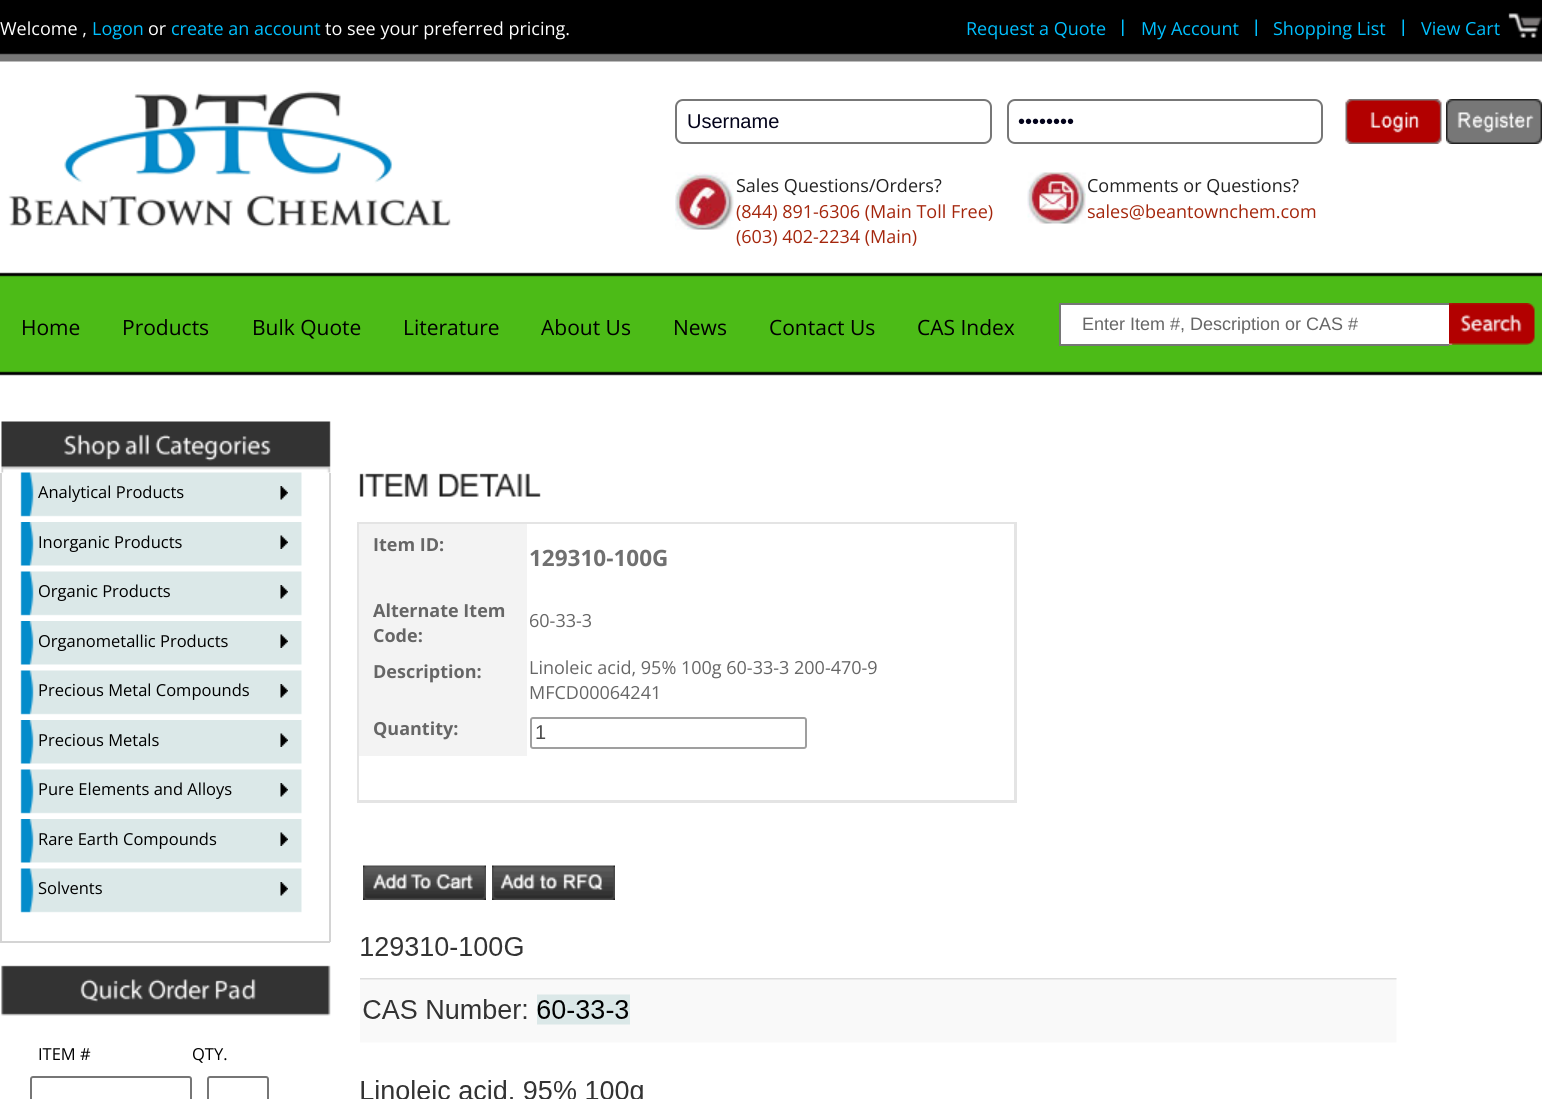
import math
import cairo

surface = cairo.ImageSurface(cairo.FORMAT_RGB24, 1542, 1099)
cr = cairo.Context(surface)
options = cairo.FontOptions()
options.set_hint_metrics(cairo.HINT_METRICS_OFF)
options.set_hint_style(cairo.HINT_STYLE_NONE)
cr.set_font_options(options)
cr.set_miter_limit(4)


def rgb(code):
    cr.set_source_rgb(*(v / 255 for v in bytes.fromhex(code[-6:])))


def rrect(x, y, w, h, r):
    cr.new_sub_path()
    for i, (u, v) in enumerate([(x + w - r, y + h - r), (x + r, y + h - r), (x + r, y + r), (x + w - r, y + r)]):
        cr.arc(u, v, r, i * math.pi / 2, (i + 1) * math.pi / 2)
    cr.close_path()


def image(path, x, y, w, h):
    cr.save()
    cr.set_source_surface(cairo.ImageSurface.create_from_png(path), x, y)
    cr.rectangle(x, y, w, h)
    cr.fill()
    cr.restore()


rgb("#ffffff")
cr.paint()
image("img/1.png", 0, 0, 1542, 376)
image("img/2.png", 1508, 13, 34, 25)
image("img/3.png", 1122, 19, 2, 17)
image("img/4.png", 1255, 19, 2, 17)
image("img/4.png", 1402, 19, 2, 17)
image("img/5.png", 8, 91, 443, 136)
rrect(676, 100, 315, 43, 7)
rgb("#777777")
cr.stroke()
rrect(1008, 100, 314, 43, 7)
cr.stroke()
image("img/6.png", 1345, 99, 97, 45)
image("img/7.png", 1446, 99, 96, 45)
image("img/8.png", 675, 172, 59, 58)
image("img/9.png", 1027, 172, 59, 52)
for x, y, w, h, color in [
    (1061, 305, 388, 39, "#ffffff"),
    (1059, 303, 390, 2, "#767676"),
    (1059, 344, 390, 2, "#767676"),
    (1059, 303, 2, 42, "#767676"),
]:
    rgb(color)
    cr.rectangle(x, y, w, h)
    cr.fill()
image("img/10.png", 1449, 303, 86, 42)
image("img/11.png", 1, 421, 330, 52)
for x, y, w, h, color in [
    (329, 473, 2, 469, "#d4d4d4"),
    (0, 941, 330, 2, "#d4d4d4"),
    (0, 473, 2, 469, "#d4d4d4"),
]:
    rgb(color)
    cr.rectangle(x, y, w, h)
    cr.fill()
image("img/12.png", 20, 472, 282, 45)
image("img/13.png", 280, 486, 8, 14)
image("img/14.png", 20, 522, 282, 44)
image("img/15.png", 280, 535, 8, 14)
image("img/12.png", 20, 571, 282, 45)
image("img/13.png", 280, 585, 8, 14)
image("img/14.png", 20, 621, 282, 44)
image("img/15.png", 280, 634, 8, 14)
image("img/12.png", 20, 670, 282, 45)
image("img/13.png", 280, 684, 8, 14)
image("img/14.png", 20, 720, 282, 44)
image("img/15.png", 280, 733, 8, 14)
image("img/12.png", 20, 769, 282, 45)
image("img/13.png", 280, 783, 8, 14)
image("img/14.png", 20, 819, 282, 44)
image("img/15.png", 280, 832, 8, 14)
image("img/12.png", 20, 868, 282, 45)
image("img/13.png", 280, 882, 8, 14)
image("img/16.png", 1, 965, 330, 51)
rrect(31, 1077, 160, 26, 2)
rgb("#767676")
cr.stroke()
rrect(208, 1077, 60, 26, 2)
cr.stroke()
image("img/17.png", 359, 473, 182, 24)
for x, y, w, h, color in [
    (357, 522, 660, 2, "#e4e4e4"),
    (357, 522, 2, 281, "#e4e4e4"),
    (1014, 522, 3, 281, "#e4e4e4"),
    (357, 800, 660, 3, "#e4e4e4"),
    (359, 524, 168, 232, "#f3f3f3"),
]:
    rgb(color)
    cr.rectangle(x, y, w, h)
    cr.fill()
rrect(531, 718, 275, 30, 2)
rgb("#9f9f9f")
cr.stroke()
image("img/18.png", 363, 865, 123, 35)
image("img/19.png", 492, 865, 123, 35)
image("img/20.png", 360, 937, 1037, 162)
cr.select_font_face("Open Sans")
cr.set_font_size(18)
rgb("#ffffff")
cr.move_to(0, 35)
cr.show_text("Welcome ,")
rgb("#00c0ff")
cr.move_to(92, 35)
cr.show_text("Logon")
rgb("#ffffff")
cr.move_to(148, 35)
cr.show_text("or")
rgb("#00c0ff")
cr.move_to(171, 35)
cr.show_text("create an account")
rgb("#ffffff")
cr.move_to(325, 35)
cr.show_text("to see your preferred pricing.")
rgb("#00c0ff")
for x, y, s in [
    (966, 35, "Request a Quote"),
    (1141, 35, "My Account"),
    (1273, 35, "Shopping List"),
    (1421, 35, "View Cart"),
]:
    cr.move_to(x, y)
    cr.show_text(s)
cr.select_font_face("Liberation Sans")
cr.set_font_size(20)
rgb("#03031b")
cr.move_to(687, 128)
cr.show_text("Username")
cr.move_to(1018, 128)
cr.show_text("••••••••")
cr.select_font_face("Open Sans")
cr.set_font_size(18)
rgb("#222222")
cr.move_to(736, 192)
cr.show_text("Sales Questions/Orders?")
rgb("#a4260c")
cr.move_to(736, 218)
cr.show_text("(844) 891-6306 (Main Toll Free)")
cr.move_to(736, 243)
cr.show_text("(603) 402-2234 (Main)")
rgb("#222222")
cr.move_to(1087, 192)
cr.show_text("Comments or Questions?")
rgb("#a4260c")
cr.move_to(1087, 218)
cr.show_text("sales@beantownchem.com")
cr.set_font_size(21)
rgb("#000000")
for x, y, s in [
    (21, 335, "Home"),
    (122, 335, "Products"),
    (252, 335, "Bulk Quote"),
    (403, 335, "Literature"),
    (541, 335, "About Us"),
    (673, 335, "News"),
    (769, 335, "Contact Us"),
    (917, 335, "CAS Index"),
]:
    cr.move_to(x, y)
    cr.show_text(s)
cr.select_font_face("Liberation Sans")
cr.set_font_size(18)
rgb("#666666")
cr.move_to(1082, 330)
cr.show_text("Enter Item #, Description or CAS #")
cr.select_font_face("Open Sans")
cr.set_font_size(16.5)
rgb("#000000")
for x, y, s in [
    (38, 498, "Analytical Products"),
    (38, 548, "Inorganic Products"),
    (38, 597, "Organic Products"),
    (38, 647, "Organometallic Products"),
    (38, 696, "Precious Metal Compounds"),
    (38, 746, "Precious Metals"),
    (38, 795, "Pure Elements and Alloys"),
    (38, 845, "Rare Earth Compounds"),
    (38, 894, "Solvents"),
    (38, 1060, "ITEM #"),
    (192, 1060, "QTY."),
]:
    cr.move_to(x, y)
    cr.show_text(s)
cr.select_font_face("Open Sans", cairo.FONT_SLANT_NORMAL, cairo.FONT_WEIGHT_BOLD)
cr.set_font_size(18)
rgb("#666666")
cr.move_to(373, 551)
cr.show_text("Item ID:")
cr.set_font_size(22.5)
rgb("#707070")
cr.move_to(529, 566)
cr.show_text("129310-100G")
cr.set_font_size(18)
rgb("#666666")
cr.move_to(373, 617)
cr.show_text("Alternate Item")
cr.move_to(373, 642)
cr.show_text("Code:")
cr.select_font_face("Open Sans")
cr.move_to(529, 627)
cr.show_text("60-33-3")
cr.select_font_face("Open Sans", cairo.FONT_SLANT_NORMAL, cairo.FONT_WEIGHT_BOLD)
cr.move_to(373, 678)
cr.show_text("Description:")
cr.select_font_face("Open Sans")
cr.move_to(529, 674)
cr.show_text("Linoleic acid, 95% 100g 60-33-3 200-470-9")
cr.move_to(529, 699)
cr.show_text("MFCD00064241")
cr.select_font_face("Open Sans", cairo.FONT_SLANT_NORMAL, cairo.FONT_WEIGHT_BOLD)
cr.move_to(373, 735)
cr.show_text("Quantity:")
cr.select_font_face("Liberation Sans")
cr.set_font_size(20)
rgb("#4d4d4d")
cr.move_to(535, 739)
cr.show_text("1")
surface.write_to_png("page.png")
